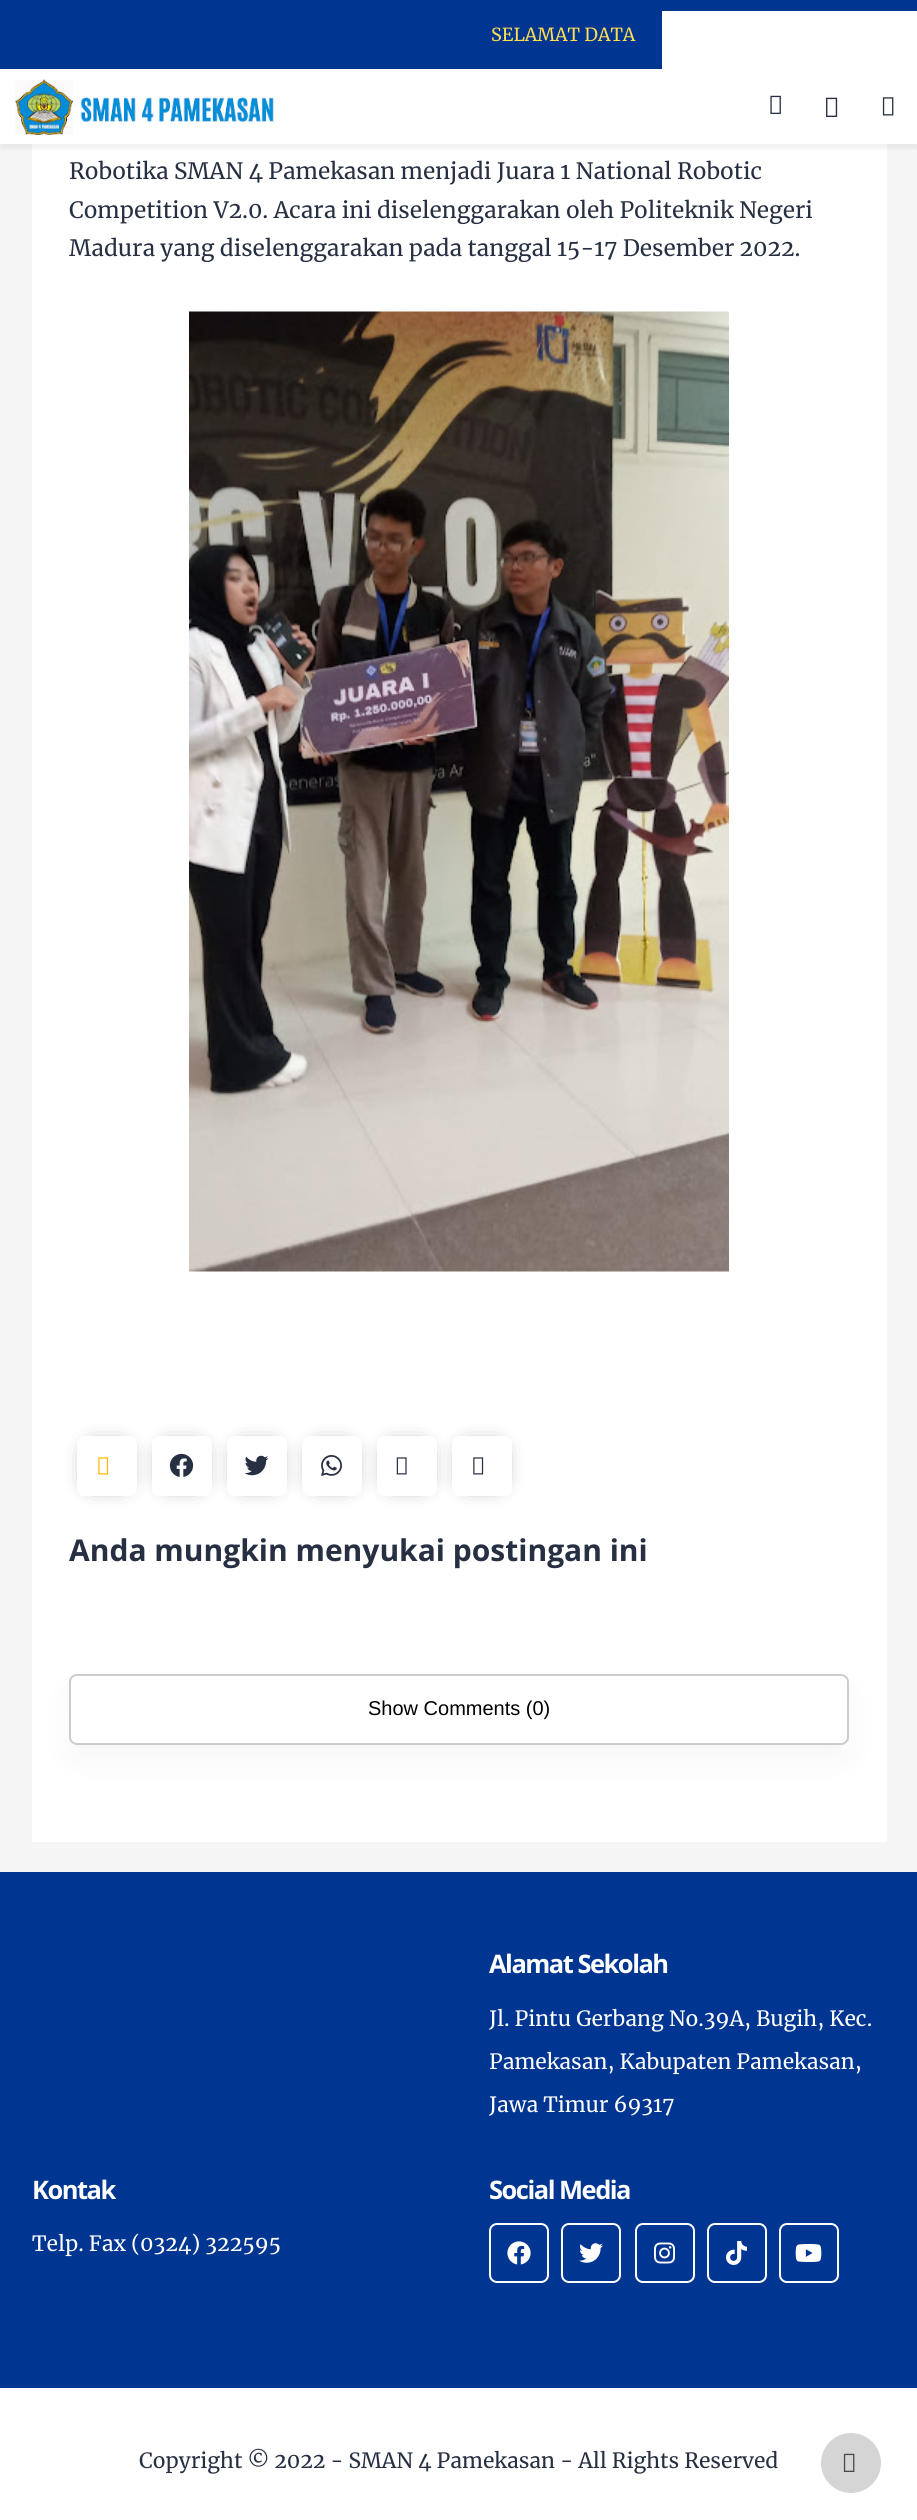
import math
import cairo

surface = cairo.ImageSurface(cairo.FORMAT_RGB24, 917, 2520)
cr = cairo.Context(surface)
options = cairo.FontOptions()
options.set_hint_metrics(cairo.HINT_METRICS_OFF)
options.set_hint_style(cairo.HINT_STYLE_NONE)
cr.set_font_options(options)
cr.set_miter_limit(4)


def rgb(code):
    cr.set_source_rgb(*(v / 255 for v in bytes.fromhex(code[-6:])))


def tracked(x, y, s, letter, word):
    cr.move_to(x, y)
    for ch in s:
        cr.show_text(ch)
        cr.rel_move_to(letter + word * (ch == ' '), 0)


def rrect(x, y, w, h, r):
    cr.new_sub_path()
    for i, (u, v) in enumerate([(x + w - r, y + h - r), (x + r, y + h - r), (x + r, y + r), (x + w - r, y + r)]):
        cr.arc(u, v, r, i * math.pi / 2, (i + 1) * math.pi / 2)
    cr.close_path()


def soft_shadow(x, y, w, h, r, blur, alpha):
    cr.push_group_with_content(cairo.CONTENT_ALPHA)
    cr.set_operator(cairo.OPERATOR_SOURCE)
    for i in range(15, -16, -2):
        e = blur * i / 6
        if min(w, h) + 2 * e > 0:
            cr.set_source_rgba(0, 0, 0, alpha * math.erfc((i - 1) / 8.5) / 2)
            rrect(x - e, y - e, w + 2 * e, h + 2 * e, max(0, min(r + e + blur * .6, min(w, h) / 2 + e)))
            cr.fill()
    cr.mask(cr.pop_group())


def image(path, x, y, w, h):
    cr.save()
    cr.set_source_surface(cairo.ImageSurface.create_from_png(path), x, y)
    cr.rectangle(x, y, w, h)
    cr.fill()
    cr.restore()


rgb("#f5f5f5")
cr.paint()
rgb("#ffffff")
cr.rectangle(32, 144, 855, 1698)
cr.fill()
rgb("#000000")
soft_shadow(0, 5, 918, 144, 0, 1.5, 0.05)
for x, y, w, h, color in [
    (0, 11, 917, 133, "#ffffff"),
    (0, 0, 917, 11, "#003692"),
    (0, 11, 662, 58, "#003692"),
]:
    rgb(color)
    cr.rectangle(x, y, w, h)
    cr.fill()
image("img/1.png", 15, 79, 259, 56)
image("img/2.png", 770, 95, 11, 19)
image("img/3.png", 826, 97, 12, 20)
image("img/4.png", 882, 97, 12, 19)
image("img/5.png", 189, 311, 540, 961)
rgb("#000000")
soft_shadow(92, 1451, 30, 30, 0, 11, 0.9)
rgb("#ffffff")
rrect(77, 1436, 60, 60, 8)
cr.fill()
image("img/6.png", 98, 1457, 11, 18)
rgb("#000000")
soft_shadow(167, 1451, 30, 30, 0, 11, 0.9)
rgb("#ffffff")
rrect(152, 1436, 60, 60, 8)
cr.fill()
image("img/7.png", 169, 1453, 25, 24)
rgb("#000000")
soft_shadow(242, 1451, 30, 30, 0, 11, 0.9)
rgb("#ffffff")
rrect(227, 1436, 60, 60, 8)
cr.fill()
image("img/8.png", 244, 1455, 25, 21)
rgb("#000000")
soft_shadow(317, 1451, 30, 30, 0, 11, 0.9)
rgb("#ffffff")
rrect(302, 1436, 60, 60, 8)
cr.fill()
image("img/9.png", 321, 1455, 21, 21)
rgb("#000000")
soft_shadow(392, 1451, 30, 30, 0, 11, 0.9)
rgb("#ffffff")
rrect(377, 1436, 60, 60, 8)
cr.fill()
image("img/10.png", 396, 1457, 11, 18)
rgb("#000000")
soft_shadow(467, 1451, 30, 30, 0, 11, 0.9)
rgb("#ffffff")
rrect(452, 1436, 60, 60, 8)
cr.fill()
image("img/11.png", 473, 1457, 11, 18)
rgb("#000000")
soft_shadow(77, 1697, 765, 55, 0, 19, 0.05)
rgb("#ffffff")
rrect(70, 1675, 778, 69, 7)
cr.fill_preserve()
rgb("#cccccc")
cr.stroke()
rgb("#003692")
cr.rectangle(0, 1872, 917, 516)
cr.fill()
rrect(490, 2224, 58, 58, 7)
rgb("#ffffff")
cr.stroke()
image("img/12.png", 507, 2241, 24, 24)
rrect(562, 2224, 58, 58, 7)
cr.stroke()
image("img/13.png", 579, 2243, 24, 20)
rrect(636, 2224, 58, 58, 7)
cr.stroke()
image("img/14.png", 654, 2242, 21, 22)
rrect(708, 2224, 58, 58, 7)
cr.stroke()
image("img/15.png", 726, 2241, 21, 24)
rrect(780, 2224, 58, 58, 7)
cr.stroke()
image("img/16.png", 795, 2244, 27, 18)
cr.rectangle(0, 2388, 917, 132)
cr.fill()
rgb("#d5d5d5")
cr.arc(851, 2463, 30, 0, 2 * math.pi)
cr.fill()
image("img/17.png", 843, 2453, 12, 19)
cr.select_font_face("Merriweather")
cr.set_font_size(18)
rgb("#ffde4f")
cr.move_to(491, 41)
cr.show_text("SELAMAT DATA")
cr.set_font_size(22.5)
rgb("#273043")
for x, y, s in [
    (69, 179, "Robotika SMAN 4 Pamekasan menjadi Juara 1 National Robotic"),
    (69, 218, "Competition V2.0. Acara ini diselenggarakan oleh Politeknik Negeri"),
    (69, 256, "Madura yang diselenggarakan pada tanggal 15-17 Desember 2022."),
]:
    cr.move_to(x, y)
    cr.show_text(s)
cr.select_font_face("Open Sans", cairo.FONT_SLANT_NORMAL, cairo.FONT_WEIGHT_BOLD)
cr.set_font_size(30)
cr.move_to(69, 1561)
cr.show_text("Anda mungkin menyukai postingan ini")
cr.select_font_face("Liberation Sans")
cr.set_font_size(20)
rgb("#000000")
cr.move_to(368, 1715)
cr.show_text("Show Comments (0)")
cr.select_font_face("Open Sans", cairo.FONT_SLANT_NORMAL, cairo.FONT_WEIGHT_BOLD)
cr.set_font_size(25.5)
rgb("#ffffff")
tracked(489, 1973, "Alamat Sekolah", -1.5, 0)
cr.select_font_face("Merriweather")
cr.set_font_size(21)
for x, y, s in [
    (489, 2026, "Jl. Pintu Gerbang No.39A, Bugih, Kec."),
    (489, 2069, "Pamekasan, Kabupaten Pamekasan,"),
    (489, 2112, "Jawa Timur 69317"),
]:
    cr.move_to(x, y)
    cr.show_text(s)
cr.select_font_face("Open Sans", cairo.FONT_SLANT_NORMAL, cairo.FONT_WEIGHT_BOLD)
cr.set_font_size(25.5)
tracked(32, 2199, "Kontak", -1.5, 0)
cr.select_font_face("Merriweather")
cr.set_font_size(21)
cr.move_to(32, 2251)
cr.show_text("Telp. Fax (0324) 322595")
cr.select_font_face("Open Sans", cairo.FONT_SLANT_NORMAL, cairo.FONT_WEIGHT_BOLD)
cr.set_font_size(25.5)
tracked(489, 2199, "Social Media", -1.5, 0)
cr.select_font_face("Merriweather")
cr.set_font_size(21)
rgb("#273043")
cr.move_to(139, 2468)
cr.show_text("Copyright © 2022 - SMAN 4 Pamekasan - All Rights Reserved")
surface.write_to_png("page.png")
